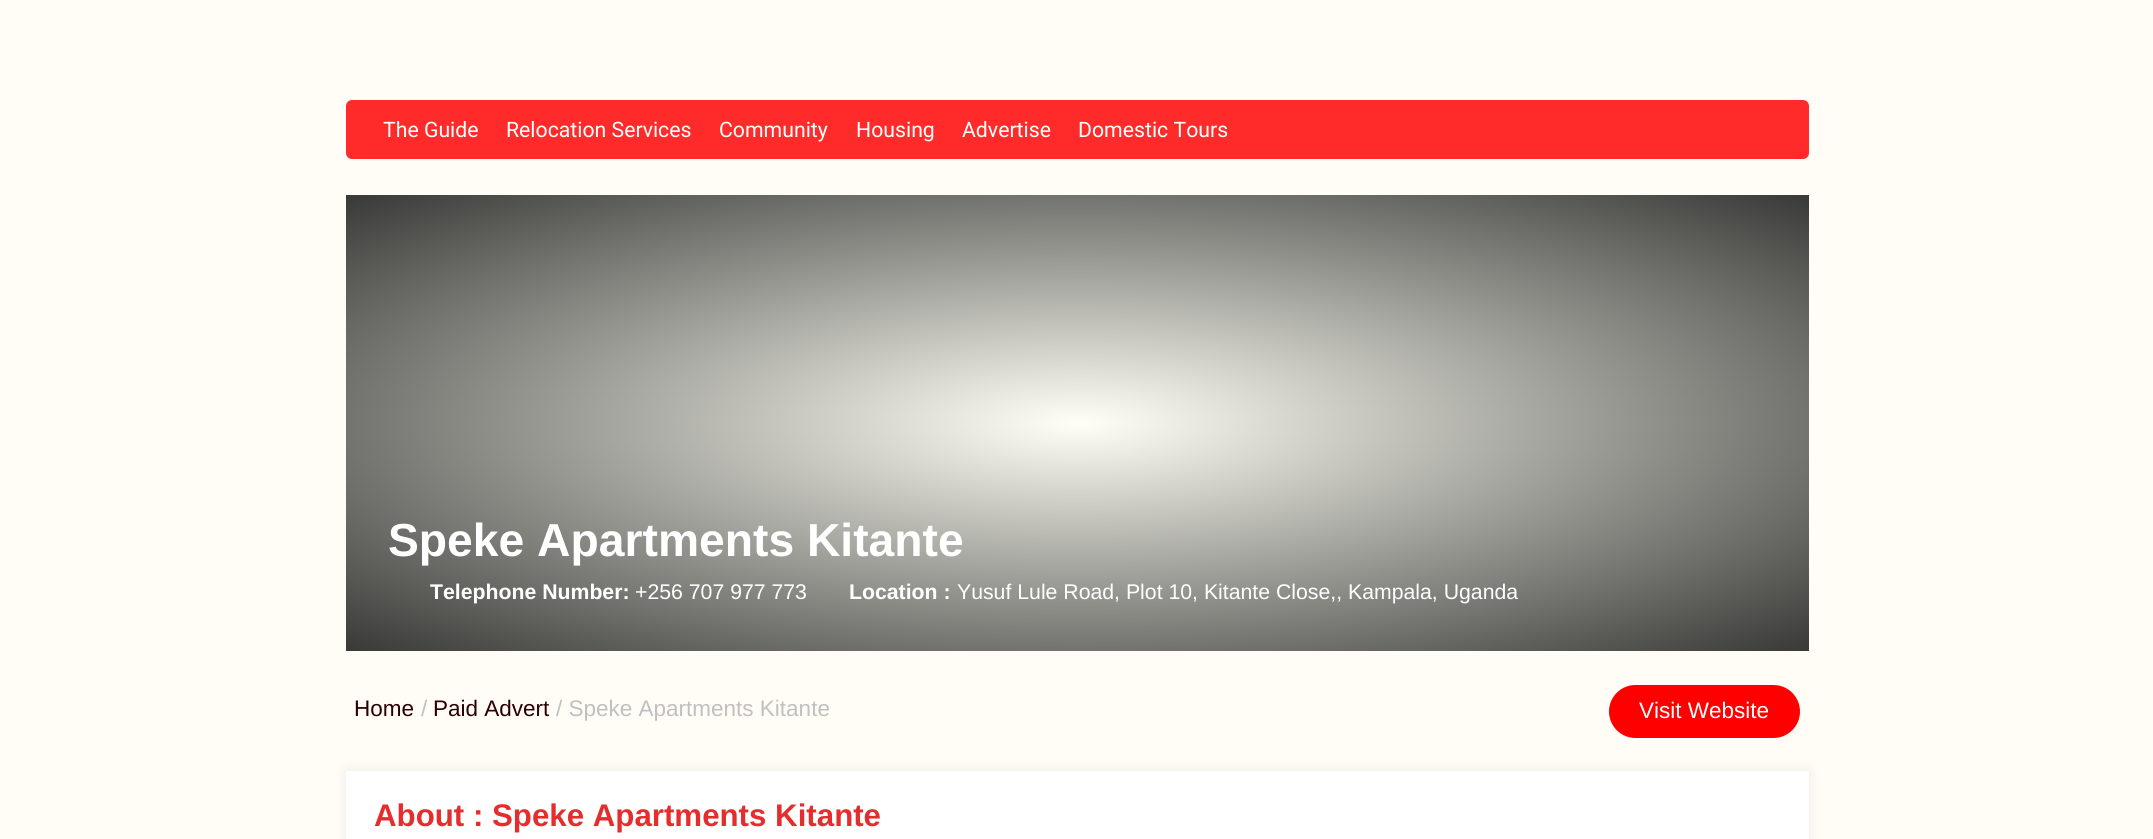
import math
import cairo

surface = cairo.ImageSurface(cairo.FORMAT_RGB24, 2153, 839)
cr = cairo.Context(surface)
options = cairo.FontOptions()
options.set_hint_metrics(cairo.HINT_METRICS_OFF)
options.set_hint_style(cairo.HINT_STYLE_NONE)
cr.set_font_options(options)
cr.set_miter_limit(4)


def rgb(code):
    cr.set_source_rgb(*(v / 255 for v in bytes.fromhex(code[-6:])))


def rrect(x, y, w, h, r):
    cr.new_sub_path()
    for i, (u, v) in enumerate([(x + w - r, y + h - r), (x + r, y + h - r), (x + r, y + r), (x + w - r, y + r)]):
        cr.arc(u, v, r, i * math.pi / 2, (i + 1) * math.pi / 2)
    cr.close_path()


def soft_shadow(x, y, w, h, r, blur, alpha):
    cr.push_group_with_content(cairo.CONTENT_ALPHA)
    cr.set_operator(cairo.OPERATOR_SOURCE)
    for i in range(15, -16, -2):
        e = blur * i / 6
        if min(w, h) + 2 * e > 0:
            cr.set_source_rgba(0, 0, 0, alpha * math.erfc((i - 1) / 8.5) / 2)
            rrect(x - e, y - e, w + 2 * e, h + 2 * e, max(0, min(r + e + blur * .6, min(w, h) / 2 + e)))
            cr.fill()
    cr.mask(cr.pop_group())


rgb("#fffdf6")
cr.paint()
rgb("#ff2b2a")
rrect(346, 100, 1463, 59, 6)
cr.fill()
gradient = cairo.RadialGradient(0, 0, 0, 0, 0, 1)
gradient.set_matrix(cairo.Matrix(1 / 1034, 0, 0, 1 / 323, -1 * 1078 / 1034, -1 * 423 / 323))
gradient.add_color_stop_rgba(0, 1, 1, 0.965, 1)
gradient.add_color_stop_rgba(1, 0.22, 0.22, 0.212, 1)
cr.set_source(gradient)
cr.rectangle(346, 195, 1463, 456)
cr.fill()
rgb("#ff0000")
rrect(1609, 685, 191, 53, 26.5)
cr.fill()
rgb("#dcd2d2")
soft_shadow(346, 771, 1463, 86, 0, 6, 0.5)
rgb("#ffffff")
cr.rectangle(346, 771, 1463, 68)
cr.fill()
cr.select_font_face("Roboto")
cr.set_font_size(21.25)
for x, y, s in [
    (383, 137, "The Guide"),
    (506, 137, "Relocation Services"),
    (719, 137, "Community"),
    (856, 137, "Housing"),
    (962, 137, "Advertise"),
    (1078, 137, "Domestic Tours"),
]:
    cr.move_to(x, y)
    cr.show_text(s)
cr.select_font_face("Liberation Sans", cairo.FONT_SLANT_NORMAL, cairo.FONT_WEIGHT_BOLD)
cr.set_font_size(46.25)
cr.move_to(388, 556)
cr.show_text("Speke Apartments Kitante")
cr.set_font_size(21.25)
cr.move_to(430, 599)
cr.show_text("Telephone Number:")
cr.select_font_face("Liberation Sans")
cr.move_to(635, 599)
cr.show_text("+256 707 977 773")
cr.select_font_face("Liberation Sans", cairo.FONT_SLANT_NORMAL, cairo.FONT_WEIGHT_BOLD)
cr.move_to(849, 599)
cr.show_text("Location :")
cr.select_font_face("Liberation Sans")
cr.move_to(957, 599)
cr.show_text("Yusuf Lule Road, Plot 10, Kitante Close,, Kampala, Uganda")
cr.set_font_size(22.5)
rgb("#2b0000")
cr.move_to(354, 716)
cr.show_text("Home")
rgb("#c0c0c0")
cr.move_to(421, 716)
cr.show_text("/")
rgb("#2b0000")
cr.move_to(433, 716)
cr.show_text("Paid Advert")
rgb("#c0c0c0")
cr.move_to(556, 716)
cr.show_text("/ Speke Apartments Kitante")
rgb("#ffffff")
cr.move_to(1639, 718)
cr.show_text("Visit Website")
cr.select_font_face("Liberation Sans", cairo.FONT_SLANT_NORMAL, cairo.FONT_WEIGHT_BOLD)
cr.set_font_size(31.25)
rgb("#e52d2d")
cr.move_to(374, 826)
cr.show_text("About : Speke Apartments Kitante")
surface.write_to_png("page.png")
